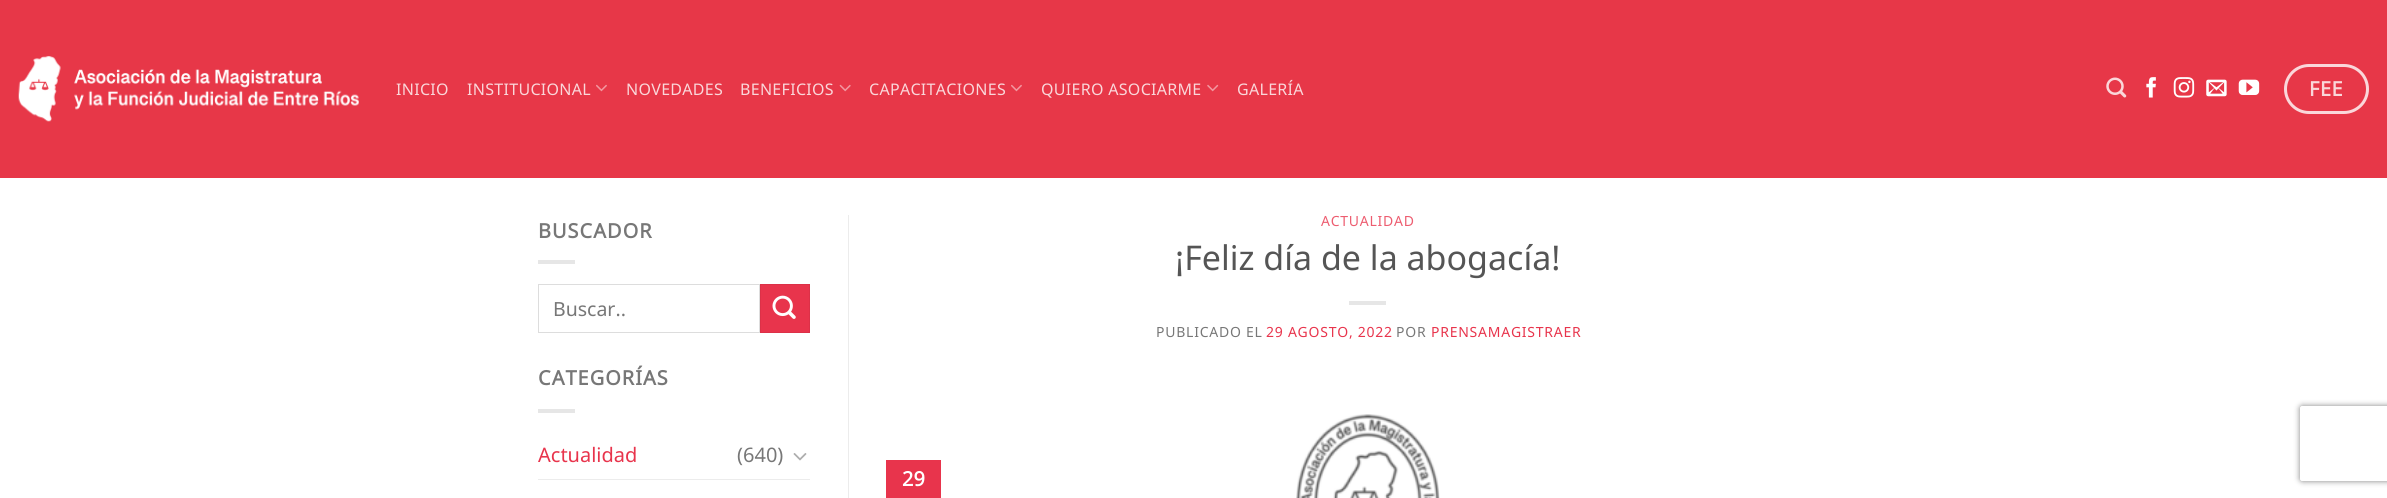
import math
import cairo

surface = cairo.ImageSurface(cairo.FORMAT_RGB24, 2387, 498)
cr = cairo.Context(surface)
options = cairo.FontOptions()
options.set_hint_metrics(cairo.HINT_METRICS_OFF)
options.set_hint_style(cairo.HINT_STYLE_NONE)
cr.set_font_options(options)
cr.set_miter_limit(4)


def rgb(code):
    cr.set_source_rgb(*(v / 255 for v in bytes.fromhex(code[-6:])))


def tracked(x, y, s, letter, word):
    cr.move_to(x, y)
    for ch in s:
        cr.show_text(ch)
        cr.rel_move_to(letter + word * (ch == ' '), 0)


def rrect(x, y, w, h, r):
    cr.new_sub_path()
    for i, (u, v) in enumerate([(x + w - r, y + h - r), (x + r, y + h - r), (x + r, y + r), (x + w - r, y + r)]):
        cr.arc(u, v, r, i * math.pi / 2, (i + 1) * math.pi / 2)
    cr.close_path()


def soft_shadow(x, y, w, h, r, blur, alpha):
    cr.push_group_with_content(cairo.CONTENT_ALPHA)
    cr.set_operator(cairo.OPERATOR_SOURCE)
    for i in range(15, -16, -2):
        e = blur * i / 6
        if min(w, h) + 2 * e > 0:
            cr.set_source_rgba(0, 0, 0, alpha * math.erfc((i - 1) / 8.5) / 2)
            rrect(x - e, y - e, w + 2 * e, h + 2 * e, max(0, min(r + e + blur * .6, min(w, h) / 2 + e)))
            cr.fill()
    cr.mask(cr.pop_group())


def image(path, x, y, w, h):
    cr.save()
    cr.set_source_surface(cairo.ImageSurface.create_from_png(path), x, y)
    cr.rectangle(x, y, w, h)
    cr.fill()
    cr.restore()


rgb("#ffffff")
cr.paint()
rgb("#e73748")
cr.rectangle(0, 0, 2387, 178)
cr.fill()
image("img/1.png", 18, 56, 341, 66)
image("img/2.png", 596, 84, 11, 8)
image("img/3.png", 839, 84, 12, 8)
image("img/2.png", 1011, 84, 11, 8)
image("img/4.png", 1207, 84, 12, 8)
image("img/5.png", 2106, 77, 21, 21)
image("img/6.png", 2146, 77, 10, 21)
image("img/7.png", 2173, 77, 22, 21)
image("img/8.png", 2206, 79, 21, 18)
image("img/9.png", 2238, 79, 22, 16)
rrect(2285.5, 65.5, 82, 47, 23.5)
rgb("#fad7da")
cr.set_line_width(3)
cr.stroke()
rgb("#e6e6e6")
cr.rectangle(538, 260, 37, 4)
cr.fill()
cr.rectangle(538.5, 284.5, 221, 48)
rgb("#dddddd")
cr.set_line_width(1)
cr.stroke()
rgb("#e8344c")
cr.rectangle(760.5, 284.5, 49, 48)
cr.fill_preserve()
rgb("#dc3148")
cr.stroke()
image("img/10.png", 772, 295, 24, 24)
rgb("#e6e6e6")
cr.rectangle(538, 409, 37, 4)
cr.fill()
image("img/11.png", 793, 453, 14, 8)
for x, y, w, h, color in [
    (538, 479, 272, 1, "#ececec"),
    (848, 215, 1, 283, "#ececec"),
    (1349, 301, 37, 4, "#e6e6e6"),
    (886, 460, 55, 38, "#e8344c"),
]:
    rgb(color)
    cr.rectangle(x, y, w, h)
    cr.fill()
image("img/12.png", 1296, 414, 144, 84)
cr.save()
cr.set_fill_rule(cairo.FILL_RULE_EVEN_ODD)
cr.new_path()
cr.move_to(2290, 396)
cr.line_to(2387, 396)
cr.line_to(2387, 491)
cr.line_to(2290, 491)
cr.close_path()
cr.move_to(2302.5, 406)
cr.line_to(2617.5, 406)
cr.curve_to(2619, 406, 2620, 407, 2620, 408.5)
cr.line_to(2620, 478.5)
cr.curve_to(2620, 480, 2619, 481, 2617.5, 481)
cr.line_to(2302.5, 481)
cr.curve_to(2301, 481, 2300, 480, 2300, 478.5)
cr.line_to(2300, 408.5)
cr.curve_to(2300, 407, 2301, 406, 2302.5, 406)
cr.close_path()
cr.clip()
rgb("#808080")
soft_shadow(2300, 406, 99, 75, 2.5, 3, 1)
cr.restore()
cr.select_font_face("Noto Sans Grantha")
cr.set_font_size(16)
rgb("#fad7da")
for x, y, s in [
    (396, 95, "INICIO"),
    (467, 95, "INSTITUCIONAL"),
    (626, 95, "NOVEDADES"),
    (740, 95, "BENEFICIOS"),
    (869, 95, "CAPACITACIONES"),
    (1041, 95, "QUIERO ASOCIARME"),
    (1237, 95, "GALERÍA"),
]:
    tracked(x, y, s, 0.3, 0)
cr.select_font_face("Noto Sans Grantha", cairo.FONT_SLANT_NORMAL, cairo.FONT_WEIGHT_BOLD)
cr.set_font_size(20)
tracked(2309, 96, "FEE", 0.5, 0)
rgb("#777777")
tracked(538, 238, "BUSCADOR", 1, 0)
cr.select_font_face("Noto Sans Grantha")
cr.set_font_size(19.5)
cr.move_to(553, 316)
cr.show_text("Buscar..")
cr.select_font_face("Noto Sans Grantha", cairo.FONT_SLANT_NORMAL, cairo.FONT_WEIGHT_BOLD)
cr.set_font_size(20)
tracked(538, 385, "CATEGORÍAS", 1, 0)
cr.select_font_face("Noto Sans Grantha")
rgb("#e8344c")
cr.move_to(538, 462)
cr.show_text("Actualidad")
rgb("#777777")
cr.move_to(737, 462)
cr.show_text("(640)")
cr.set_font_size(14)
rgb("#ed5d70")
tracked(1321, 226, "ACTUALIDAD", 0.75, 0)
cr.set_font_size(34)
rgb("#555555")
cr.move_to(1175, 270)
cr.show_text("¡Feliz día de la abogacía!")
cr.set_font_size(14)
rgb("#777777")
tracked(1156, 337, "PUBLICADO EL", 0.75, 0)
rgb("#e8344c")
tracked(1266, 337, "29 AGOSTO, 2022", 0.75, 0)
rgb("#777777")
tracked(1396, 337, "POR", 0.75, 0)
rgb("#e8344c")
tracked(1431, 337, "PRENSAMAGISTRAER", 0.75, 0)
cr.select_font_face("Noto Sans Grantha", cairo.FONT_SLANT_NORMAL, cairo.FONT_WEIGHT_BOLD)
cr.set_font_size(20)
rgb("#ffffff")
cr.move_to(902, 486)
cr.show_text("29")
surface.write_to_png("page.png")
